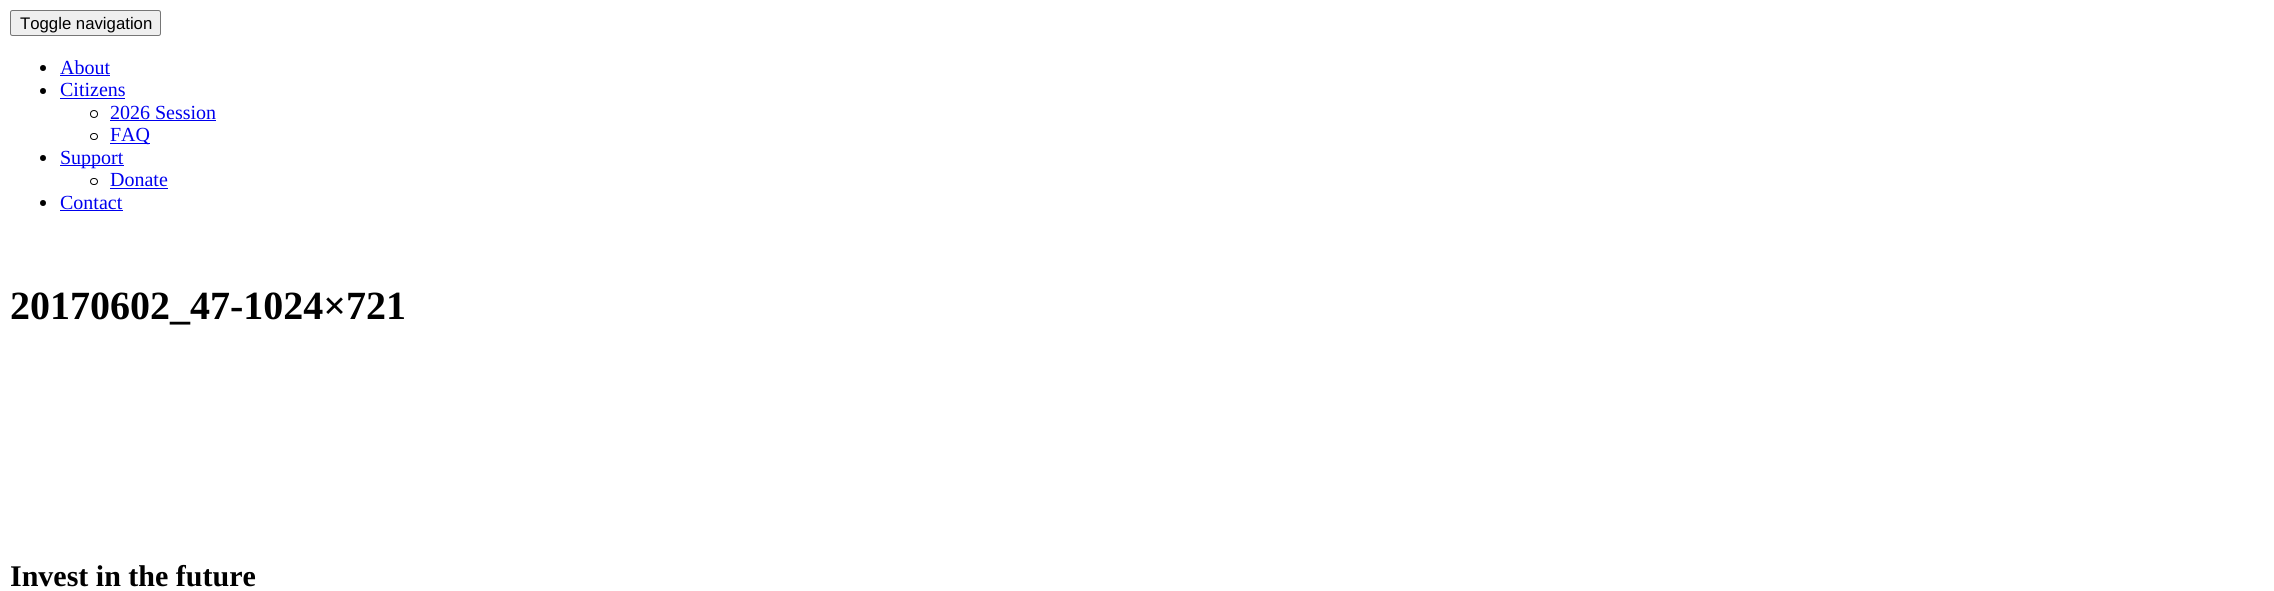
import math
import cairo

surface = cairo.ImageSurface(cairo.FORMAT_RGB24, 2274, 591)
cr = cairo.Context(surface)
options = cairo.FontOptions()
options.set_hint_metrics(cairo.HINT_METRICS_OFF)
options.set_hint_style(cairo.HINT_STYLE_NONE)
cr.set_font_options(options)
cr.set_miter_limit(4)


def rgb(code):
    cr.set_source_rgb(*(v / 255 for v in bytes.fromhex(code[-6:])))


def rrect(x, y, w, h, r):
    cr.new_sub_path()
    for i, (u, v) in enumerate([(x + w - r, y + h - r), (x + r, y + h - r), (x + r, y + r), (x + w - r, y + r)]):
        cr.arc(u, v, r, i * math.pi / 2, (i + 1) * math.pi / 2)
    cr.close_path()


rgb("#ffffff")
cr.paint()
rgb("#efefef")
rrect(10.5, 10.5, 150, 25, 2)
cr.fill_preserve()
rgb("#767676")
cr.set_line_width(1)
cr.stroke()
rgb("#000000")
cr.arc(43, 68, 3, 0, 2 * math.pi)
cr.fill()
rgb("#0000ee")
cr.rectangle(60, 75, 50, 1)
cr.fill()
rgb("#000000")
cr.arc(43, 91, 3, 0, 2 * math.pi)
cr.fill()
rgb("#0000ee")
cr.rectangle(60, 98, 65, 1)
cr.fill()
cr.arc(94, 114, 3.5, 0, 2 * math.pi)
rgb("#000000")
cr.stroke()
rgb("#0000ee")
cr.rectangle(110, 120, 106, 1)
cr.fill()
rrect(90.5, 133.5, 7, 6, 3)
rgb("#000000")
cr.stroke()
rgb("#0000ee")
cr.rectangle(110, 143, 40, 1)
cr.fill()
rgb("#000000")
cr.arc(43, 158, 3, 0, 2 * math.pi)
cr.fill()
rgb("#0000ee")
cr.rectangle(60, 165, 64, 1)
cr.fill()
rrect(90.5, 178.5, 7, 6, 3)
rgb("#000000")
cr.stroke()
rgb("#0000ee")
cr.rectangle(110, 188, 58, 1)
cr.fill()
rgb("#000000")
cr.arc(43, 203, 3, 0, 2 * math.pi)
cr.fill()
rgb("#0000ee")
cr.rectangle(60, 210, 63, 1)
cr.fill()
cr.select_font_face("Liberation Sans")
cr.set_font_size(16.75)
rgb("#000000")
cr.move_to(20, 29)
cr.show_text("Toggle navigation")
cr.select_font_face("Liberation Serif")
cr.set_font_size(20)
rgb("#0000ee")
for x, y, s in [
    (60, 74, "About"),
    (60, 96, "Citizens"),
    (110, 119, "2026 Session"),
    (110, 141, "FAQ"),
    (60, 164, "Support"),
    (110, 186, "Donate"),
    (60, 209, "Contact"),
]:
    cr.move_to(x, y)
    cr.show_text(s)
cr.select_font_face("Liberation Serif", cairo.FONT_SLANT_NORMAL, cairo.FONT_WEIGHT_BOLD)
cr.set_font_size(40)
rgb("#000000")
cr.move_to(10, 319)
cr.show_text("20170602_47-1024×721")
cr.set_font_size(30)
cr.move_to(10, 586)
cr.show_text("Invest in the future")
surface.write_to_png("page.png")
